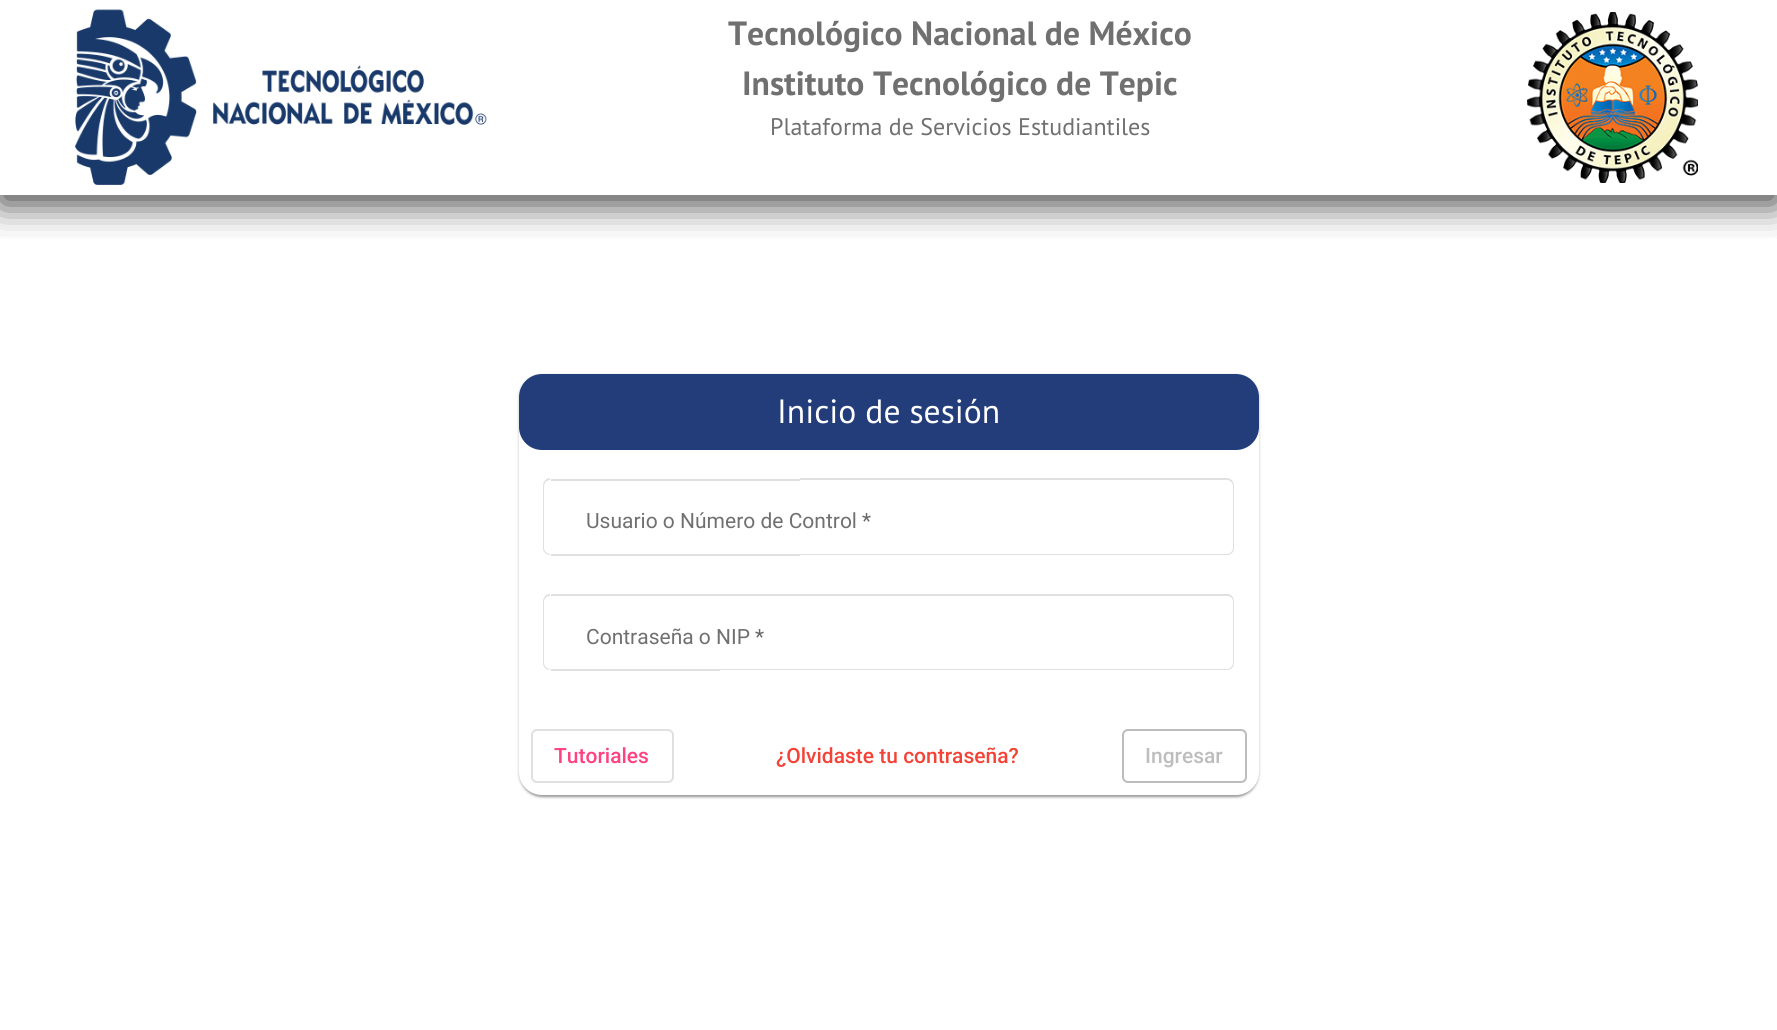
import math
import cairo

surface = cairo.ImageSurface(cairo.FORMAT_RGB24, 1777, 1030)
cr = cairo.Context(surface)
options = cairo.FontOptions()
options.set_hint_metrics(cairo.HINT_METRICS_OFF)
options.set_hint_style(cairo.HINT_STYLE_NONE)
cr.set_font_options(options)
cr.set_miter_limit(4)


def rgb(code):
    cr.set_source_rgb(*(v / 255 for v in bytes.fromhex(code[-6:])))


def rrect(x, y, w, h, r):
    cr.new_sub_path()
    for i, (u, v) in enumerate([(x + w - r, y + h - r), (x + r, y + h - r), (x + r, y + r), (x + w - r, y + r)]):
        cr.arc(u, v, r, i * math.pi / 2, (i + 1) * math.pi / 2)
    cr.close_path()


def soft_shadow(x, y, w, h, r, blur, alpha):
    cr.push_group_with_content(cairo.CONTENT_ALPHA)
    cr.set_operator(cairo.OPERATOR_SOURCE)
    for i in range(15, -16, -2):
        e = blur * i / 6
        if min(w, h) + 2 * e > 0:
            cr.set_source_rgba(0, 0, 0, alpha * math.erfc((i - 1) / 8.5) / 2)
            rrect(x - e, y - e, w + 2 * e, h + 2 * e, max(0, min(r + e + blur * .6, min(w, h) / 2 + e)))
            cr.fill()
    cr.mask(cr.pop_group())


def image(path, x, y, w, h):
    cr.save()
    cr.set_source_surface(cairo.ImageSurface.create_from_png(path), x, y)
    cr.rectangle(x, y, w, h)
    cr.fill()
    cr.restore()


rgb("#ffffff")
cr.paint()
cr.save()
cr.rectangle(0, 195, 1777, 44)
cr.clip()
rgb("#000000")
soft_shadow(0, 9, 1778, 195, 0, 18, 0.75)
cr.restore()
image("img/1.png", 75, 9, 412, 176)
image("img/2.png", 1527, 12, 171, 171)
rgb("#000000")
soft_shadow(519, 375, 740, 422, 23, 2, 0.12)
soft_shadow(519, 375, 740, 422, 23, 1, 0.14)
soft_shadow(521, 378, 736, 419, 21, 1, 0.2)
rgb("#ffffff")
rrect(519, 374, 740, 421, 23)
cr.fill()
rgb("#233d7b")
rrect(519, 374, 740, 76, 23)
cr.fill()
rgb("#e0e0e0")
cr.set_fill_rule(cairo.FILL_RULE_EVEN_ODD)
cr.new_path()
cr.move_to(550, 478)
cr.line_to(550, 555)
cr.curve_to(546, 555, 543, 552, 543, 548)
cr.line_to(543, 486)
cr.curve_to(543, 482, 546, 478, 550, 478)
cr.close_path()
cr.move_to(550, 480)
cr.line_to(550, 554)
cr.curve_to(547, 554, 544, 551, 544, 548)
cr.line_to(544, 486)
cr.curve_to(544, 483, 547, 480, 550, 480)
cr.close_path()
cr.fill()
cr.rectangle(551, 479, 249, 2)
cr.fill()
cr.rectangle(551, 554, 249, 2)
cr.fill()
cr.new_path()
cr.move_to(800, 478)
cr.line_to(1227, 478)
cr.curve_to(1231, 478, 1234, 482, 1234, 486)
cr.line_to(1234, 548)
cr.curve_to(1234, 552, 1231, 555, 1227, 555)
cr.line_to(800, 555)
cr.close_path()
cr.move_to(800, 480)
cr.line_to(1227, 480)
cr.curve_to(1230, 480, 1233, 483, 1233, 486)
cr.line_to(1233, 548)
cr.curve_to(1233, 551, 1230, 554, 1227, 554)
cr.line_to(800, 554)
cr.close_path()
cr.fill()
cr.new_path()
cr.move_to(550, 594)
cr.line_to(550, 670)
cr.curve_to(546, 670, 543, 667, 543, 663)
cr.line_to(543, 602)
cr.curve_to(543, 597, 546, 594, 550, 594)
cr.close_path()
cr.move_to(550, 596)
cr.line_to(550, 669)
cr.curve_to(547, 669, 544, 666, 544, 663)
cr.line_to(544, 602)
cr.curve_to(544, 598, 547, 596, 550, 596)
cr.close_path()
cr.fill()
cr.rectangle(551, 594, 169, 2)
cr.fill()
cr.rectangle(551, 669, 169, 2)
cr.fill()
cr.new_path()
cr.move_to(720, 594)
cr.line_to(1227, 594)
cr.curve_to(1231, 594, 1234, 597, 1234, 602)
cr.line_to(1234, 663)
cr.curve_to(1234, 667, 1231, 670, 1227, 670)
cr.line_to(720, 670)
cr.close_path()
cr.move_to(720, 596)
cr.line_to(1227, 596)
cr.curve_to(1230, 596, 1233, 598, 1233, 602)
cr.line_to(1233, 663)
cr.curve_to(1233, 666, 1230, 669, 1227, 669)
cr.line_to(720, 669)
cr.close_path()
cr.fill()
rrect(532, 730, 141, 52, 5)
cr.stroke()
rrect(1123, 730, 123, 52, 5)
rgb("#bdbdbd")
cr.stroke()
cr.select_font_face("PT Sans", cairo.FONT_SLANT_NORMAL, cairo.FONT_WEIGHT_BOLD)
cr.set_font_size(33.6)
rgb("#707070")
cr.move_to(728, 45)
cr.show_text("Tecnológico Nacional de México")
cr.move_to(742, 95)
cr.show_text("Instituto Tecnológico de Tepic")
cr.select_font_face("PT Sans")
cr.set_font_size(24)
cr.move_to(770, 135)
cr.show_text("Plataforma de Servicios Estudiantiles")
cr.set_font_size(33.6)
rgb("#ffffff")
cr.move_to(777, 423)
cr.show_text("Inicio de sesión")
cr.select_font_face("Roboto")
cr.set_font_size(21)
rgb("#707070")
cr.move_to(586, 528)
cr.show_text("Usuario o Número de Control")
rgb("#666666")
cr.move_to(862, 528)
cr.show_text("*")
rgb("#707070")
cr.move_to(586, 644)
cr.show_text("Contraseña o NIP")
rgb("#666666")
cr.move_to(755, 644)
cr.show_text("*")
cr.select_font_face("Roboto Medium")
rgb("#ff4081")
cr.move_to(554, 763)
cr.show_text("Tutoriales")
rgb("#f44336")
cr.move_to(776, 763)
cr.show_text("¿Olvidaste tu contraseña?")
rgb("#bdbdbd")
cr.move_to(1145, 763)
cr.show_text("Ingresar")
surface.write_to_png("page.png")
